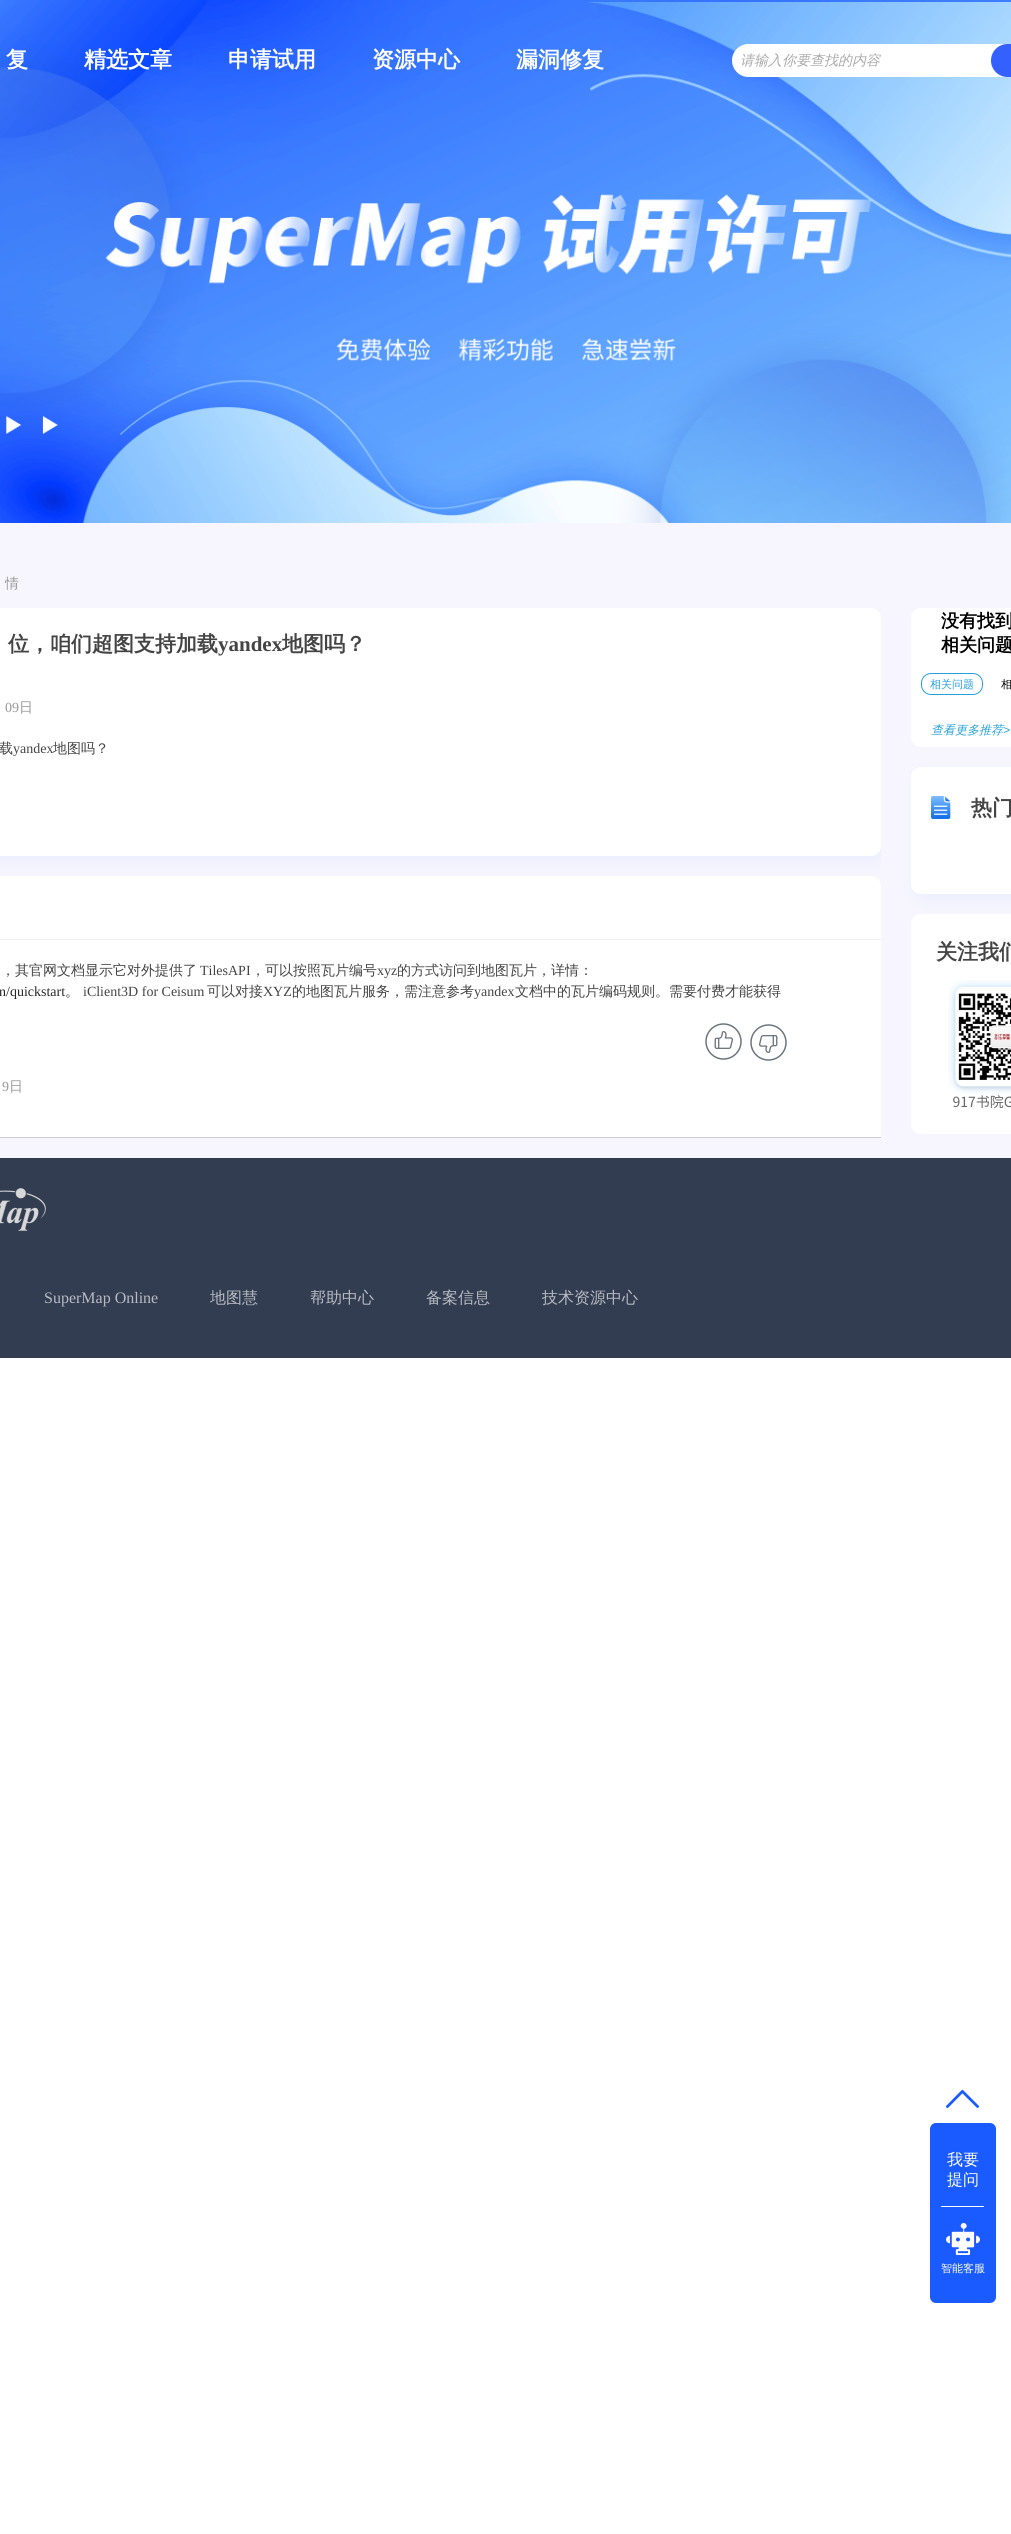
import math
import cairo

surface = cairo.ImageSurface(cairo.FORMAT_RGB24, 1011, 2534)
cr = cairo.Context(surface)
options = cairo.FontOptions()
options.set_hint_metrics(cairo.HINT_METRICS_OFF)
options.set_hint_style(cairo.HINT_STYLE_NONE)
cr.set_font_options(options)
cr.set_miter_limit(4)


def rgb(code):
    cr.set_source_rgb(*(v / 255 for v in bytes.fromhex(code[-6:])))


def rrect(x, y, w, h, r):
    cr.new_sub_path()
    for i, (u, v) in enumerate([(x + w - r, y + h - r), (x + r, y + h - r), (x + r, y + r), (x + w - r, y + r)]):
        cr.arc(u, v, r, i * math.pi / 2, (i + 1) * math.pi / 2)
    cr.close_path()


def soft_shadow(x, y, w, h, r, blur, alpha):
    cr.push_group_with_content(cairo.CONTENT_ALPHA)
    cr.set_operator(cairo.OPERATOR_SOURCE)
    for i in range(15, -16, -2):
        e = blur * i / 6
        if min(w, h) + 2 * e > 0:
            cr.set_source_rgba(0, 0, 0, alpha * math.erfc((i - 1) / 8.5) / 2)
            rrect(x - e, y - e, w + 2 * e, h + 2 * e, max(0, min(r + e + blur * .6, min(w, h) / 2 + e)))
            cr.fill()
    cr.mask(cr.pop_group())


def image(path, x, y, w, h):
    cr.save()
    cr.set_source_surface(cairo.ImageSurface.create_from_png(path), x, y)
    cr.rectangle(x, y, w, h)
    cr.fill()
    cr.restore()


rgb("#ffffff")
cr.paint()
rgb("#f7f6fe")
cr.rectangle(0, 523, 1011, 635)
cr.fill()
image("img/1.png", 0, 0, 1011, 523)
rgb("#ffffff")
rrect(732, 44, 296, 33, 16.5)
cr.fill()
rgb("#3460ff")
rrect(991, 44, 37, 33, 16.5)
cr.fill()
rgb("#ffffff")
rrect(-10, 876, 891, 262, 10)
cr.fill()
cr.save()
cr.rectangle(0, 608, 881, 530)
cr.clip()
rgb("#1e59ff")
soft_shadow(-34, 615, 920, 248, 10, 8, 0.05)
cr.restore()
rrect(-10, 608, 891, 248, 10)
cr.fill()
for x, y, w, h, color in [
    (876, 1130, 5, 7, "#ffffff"),
    (0, 939, 881, 1, "#eeeeee"),
    (0, 1137, 881, 1, "#cccccc"),
]:
    rgb(color)
    cr.rectangle(x, y, w, h)
    cr.fill()
image("img/2.png", 705, 1023, 37, 37)
image("img/3.png", 750, 1024, 37, 37)
rgb("#ffffff")
rrect(911, 608, 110, 139, 10)
cr.fill()
rrect(921.5, 673.5, 61, 21, 9.5)
rgb("#26a1da")
cr.set_line_width(1)
cr.stroke()
rgb("#1e59ff")
soft_shadow(916, 774, 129, 127, 10, 8, 0.05)
rgb("#ffffff")
rrect(911, 767, 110, 127, 10)
cr.fill()
image("img/4.png", 931, 796, 20, 23)
rrect(911, 914, 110, 220, 10)
cr.fill()
image("img/5.png", 948, 980, 63, 128)
rgb("#333d51")
cr.rectangle(0, 1158, 1011, 200)
cr.fill()
image("img/6.png", 0, 1188, 46, 43)
image("img/7.png", 946, 2090, 33, 18)
rgb("#1a5bff")
rrect(930, 2123, 66, 180, 6)
cr.fill()
rgb("#ffffff")
rrect(941, 2206, 43, 1, 0.5)
cr.fill()
image("img/8.png", 946, 2223, 34, 32)
cr.select_font_face("WenQuanYi Zen Hei", cairo.FONT_SLANT_NORMAL, cairo.FONT_WEIGHT_BOLD)
cr.set_font_size(22)
for x, y, s in [
    (6, 67, "复"),
    (84, 67, "精选文章"),
    (228, 67, "申请试用"),
    (372, 67, "资源中心"),
    (516, 67, "漏洞修复"),
]:
    cr.move_to(x, y)
    cr.show_text(s)
cr.select_font_face("WenQuanYi Zen Hei Medium", cairo.FONT_SLANT_ITALIC)
cr.set_font_size(14)
rgb("#aaaaaa")
cr.move_to(740, 65)
cr.show_text("请输入你要查找的内容")
cr.select_font_face("WenQuanYi Zen Hei Medium")
rgb("#999999")
cr.move_to(5, 588)
cr.show_text("情")
cr.select_font_face("WenQuanYi Zen Hei", cairo.FONT_SLANT_NORMAL, cairo.FONT_WEIGHT_BOLD)
cr.set_font_size(21)
rgb("#444444")
cr.move_to(8, 651)
cr.show_text("位，咱们超图支持加载")
cr.select_font_face("Liberation Serif", cairo.FONT_SLANT_NORMAL, cairo.FONT_WEIGHT_BOLD)
cr.move_to(218, 651)
cr.show_text("yandex")
cr.select_font_face("WenQuanYi Zen Hei", cairo.FONT_SLANT_NORMAL, cairo.FONT_WEIGHT_BOLD)
cr.move_to(282, 651)
cr.show_text("地图吗？")
cr.select_font_face("Liberation Serif")
cr.set_font_size(14)
rgb("#999999")
cr.move_to(5, 712)
cr.show_text("09")
cr.select_font_face("WenQuanYi Zen Hei Medium")
cr.move_to(19, 712)
cr.show_text("日")
rgb("#444444")
cr.move_to(-1, 753)
cr.show_text("载")
cr.select_font_face("Liberation Serif")
cr.move_to(13, 753)
cr.show_text("yandex")
cr.select_font_face("WenQuanYi Zen Hei Medium")
cr.move_to(53, 753)
cr.show_text("地图吗？")
cr.move_to(1, 975)
cr.show_text("，其官网文档显示它对外提供了")
cr.select_font_face("Liberation Serif")
cr.move_to(200, 975)
cr.show_text("TilesAPI")
cr.select_font_face("WenQuanYi Zen Hei Medium")
cr.move_to(251, 975)
cr.show_text("，可以按照瓦片编号")
cr.select_font_face("Liberation Serif")
cr.move_to(377, 975)
cr.show_text("xyz")
cr.select_font_face("WenQuanYi Zen Hei Medium")
cr.move_to(397, 975)
cr.show_text("的方式访问到地图瓦片，详情：")
cr.select_font_face("Liberation Serif")
rgb("#282828")
cr.move_to(-1, 996)
cr.show_text("n/quickstart")
cr.select_font_face("WenQuanYi Zen Hei Medium")
cr.move_to(65, 996)
cr.show_text("。")
cr.select_font_face("Liberation Serif")
rgb("#444444")
cr.move_to(83, 996)
cr.show_text("iClient3D for Ceisum")
cr.select_font_face("WenQuanYi Zen Hei Medium")
cr.move_to(207, 996)
cr.show_text("可以对接")
cr.select_font_face("Liberation Serif")
cr.move_to(263, 996)
cr.show_text("XYZ")
cr.select_font_face("WenQuanYi Zen Hei Medium")
cr.move_to(292, 996)
cr.show_text("的地图瓦片服务，需注意参考")
cr.select_font_face("Liberation Serif")
cr.move_to(474, 996)
cr.show_text("yandex")
cr.select_font_face("WenQuanYi Zen Hei Medium")
cr.move_to(515, 996)
cr.show_text("文档中的瓦片编码规则。需要付费才能获得")
cr.select_font_face("Liberation Serif")
rgb("#999999")
cr.move_to(2, 1091)
cr.show_text("9")
cr.select_font_face("WenQuanYi Zen Hei Medium")
cr.move_to(9, 1091)
cr.show_text("日")
cr.select_font_face("WenQuanYi Zen Hei", cairo.FONT_SLANT_NORMAL, cairo.FONT_WEIGHT_BOLD)
cr.set_font_size(18)
rgb("#000000")
cr.move_to(941, 627)
cr.show_text("没有找到")
cr.move_to(941, 651)
cr.show_text("相关问题")
cr.select_font_face("WenQuanYi Zen Hei Medium")
cr.set_font_size(11)
rgb("#26a1da")
cr.move_to(930, 688)
cr.show_text("相关问题")
rgb("#000000")
cr.move_to(1001, 688)
cr.show_text("相")
cr.select_font_face("WenQuanYi Zen Hei Medium", cairo.FONT_SLANT_ITALIC)
cr.set_font_size(12)
rgb("#26a1da")
cr.move_to(931, 734)
cr.show_text("查看更多推荐")
cr.select_font_face("Liberation Sans", cairo.FONT_SLANT_ITALIC)
cr.move_to(1003, 734)
cr.show_text(">")
cr.select_font_face("WenQuanYi Zen Hei", cairo.FONT_SLANT_NORMAL, cairo.FONT_WEIGHT_BOLD)
cr.set_font_size(21)
rgb("#444444")
cr.move_to(971, 815)
cr.show_text("热门")
cr.move_to(936, 959)
cr.show_text("关注我们")
cr.select_font_face("Liberation Serif")
cr.set_font_size(16)
rgb("#b8bbc2")
cr.move_to(44, 1303)
cr.show_text("SuperMap Online")
cr.select_font_face("WenQuanYi Zen Hei Medium")
for x, y, s in [
    (210, 1303, "地图慧"),
    (310, 1303, "帮助中心"),
    (426, 1303, "备案信息"),
    (542, 1303, "技术资源中心"),
]:
    cr.move_to(x, y)
    cr.show_text(s)
rgb("#ffffff")
cr.move_to(947, 2165)
cr.show_text("我要")
cr.move_to(947, 2185)
cr.show_text("提问")
cr.set_font_size(11)
cr.move_to(941, 2272)
cr.show_text("智能客服")
surface.write_to_png("page.png")
